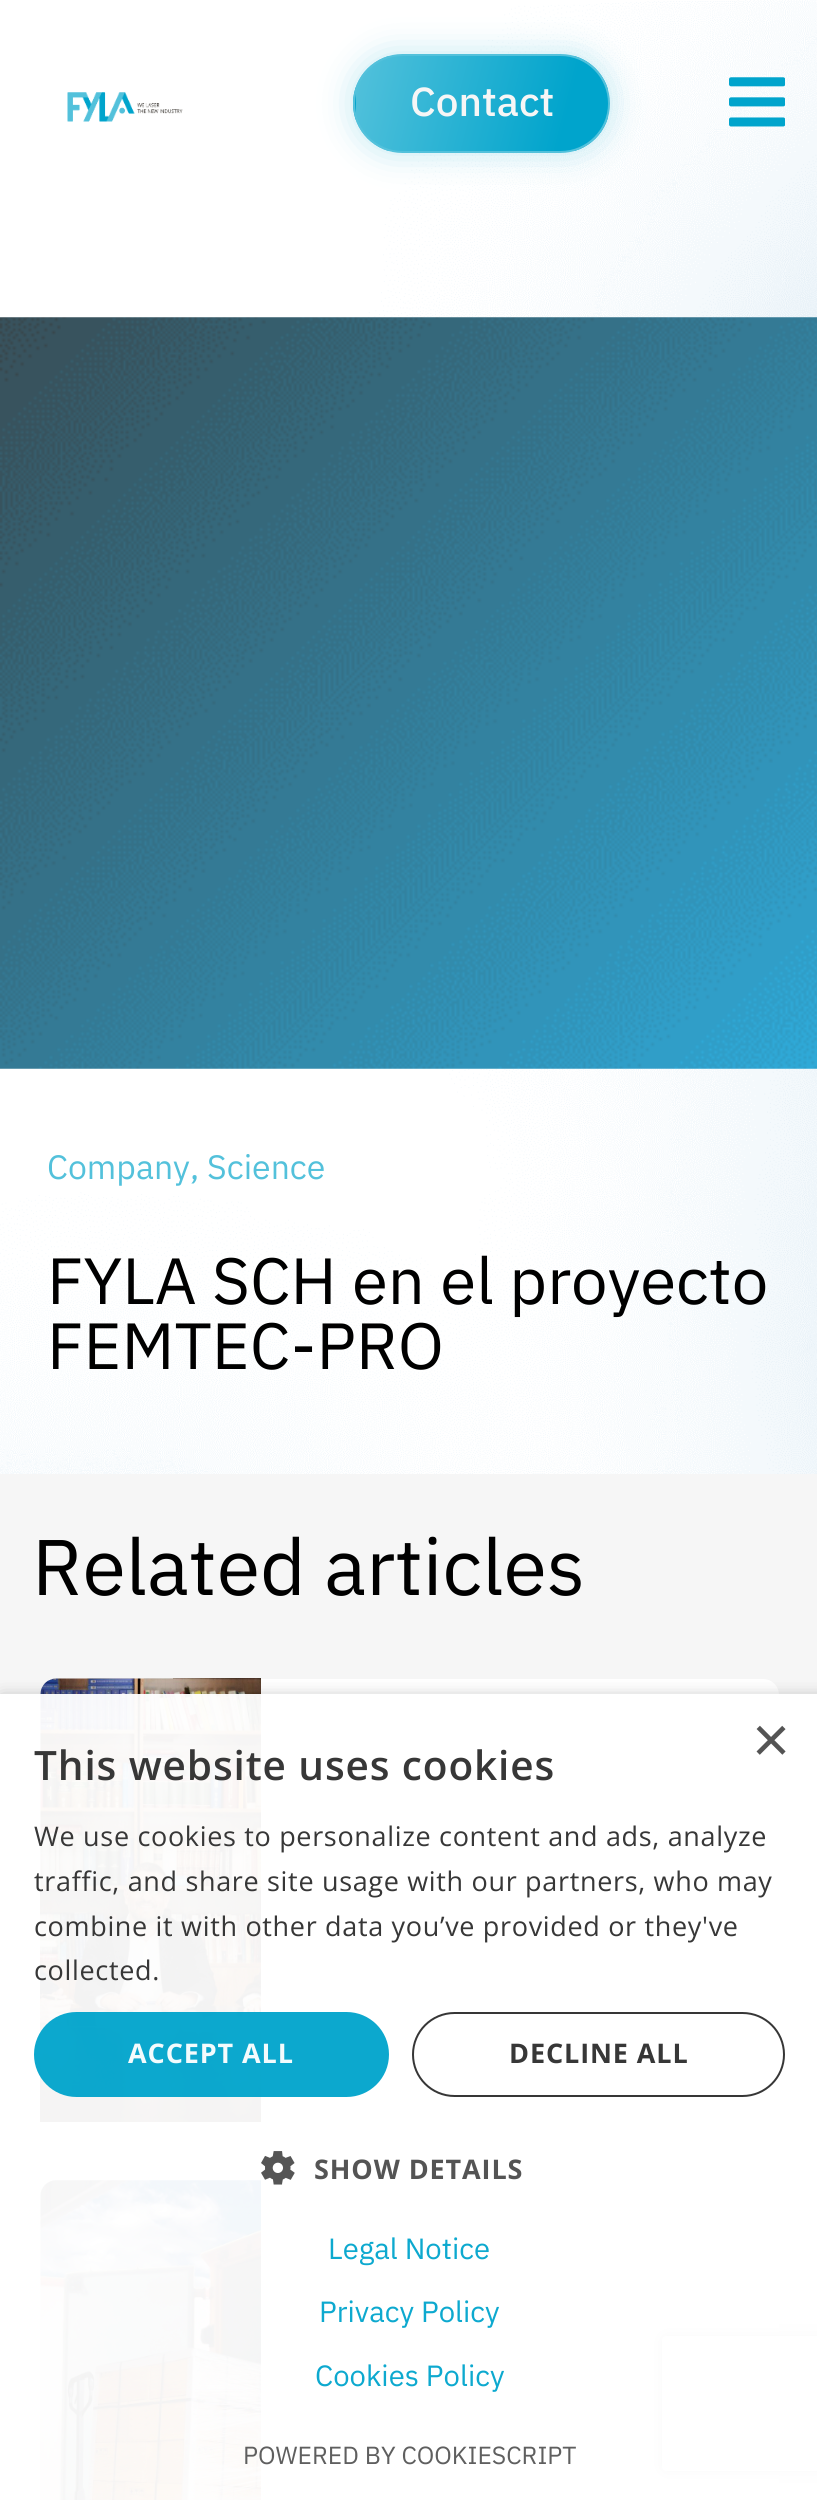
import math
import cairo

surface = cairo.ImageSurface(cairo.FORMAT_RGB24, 817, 2500)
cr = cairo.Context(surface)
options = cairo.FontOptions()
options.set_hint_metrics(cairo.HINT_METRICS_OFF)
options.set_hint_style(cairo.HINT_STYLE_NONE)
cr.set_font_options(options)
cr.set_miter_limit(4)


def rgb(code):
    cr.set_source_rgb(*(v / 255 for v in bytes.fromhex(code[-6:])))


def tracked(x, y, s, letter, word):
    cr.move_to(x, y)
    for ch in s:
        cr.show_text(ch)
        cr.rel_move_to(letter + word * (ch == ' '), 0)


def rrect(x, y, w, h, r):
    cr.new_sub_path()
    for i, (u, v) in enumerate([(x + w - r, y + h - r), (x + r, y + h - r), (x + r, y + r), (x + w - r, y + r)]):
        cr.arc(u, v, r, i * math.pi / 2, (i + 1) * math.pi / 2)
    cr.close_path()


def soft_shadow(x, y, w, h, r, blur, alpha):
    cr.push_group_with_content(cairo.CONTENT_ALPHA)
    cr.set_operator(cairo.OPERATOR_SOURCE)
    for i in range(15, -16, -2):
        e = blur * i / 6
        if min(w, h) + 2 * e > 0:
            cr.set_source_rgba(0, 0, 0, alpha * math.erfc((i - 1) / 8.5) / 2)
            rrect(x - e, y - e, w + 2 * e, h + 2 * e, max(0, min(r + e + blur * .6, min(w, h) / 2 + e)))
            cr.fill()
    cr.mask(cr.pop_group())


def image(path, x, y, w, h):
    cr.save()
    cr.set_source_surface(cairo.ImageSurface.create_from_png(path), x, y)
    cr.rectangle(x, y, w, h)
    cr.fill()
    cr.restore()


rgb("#ffffff")
cr.paint()
image("img/1.png", 0, 0, 817, 1474)
image("img/2.png", 67, 92, 116, 30)
rgb("#53c1db")
soft_shadow(353, 54, 257, 99, 49.5, 17, 0.36)
cr.save()
rrect(353, 54, 257, 99, 49.5)
cr.clip()
gradient = cairo.LinearGradient(359, 136, 100, 71)
gradient.add_color_stop_rgba(0.18, 0, 0.643, 0.8, 1)
gradient.add_color_stop_rgba(1, 0.325, 0.757, 0.859, 1)
cr.set_source(gradient)
cr.rectangle(353, 86, 3, 35)
cr.fill()
gradient = cairo.LinearGradient(611, 136, 352, 71)
gradient.add_color_stop_rgba(0.18, 0, 0.643, 0.8, 1)
gradient.add_color_stop_rgba(1, 0.325, 0.757, 0.859, 1)
cr.set_source(gradient)
cr.rectangle(356, 56, 252, 95)
cr.fill()
cr.restore()
rrect(354, 55, 255, 97, 48.5)
rgb("#53c1db")
cr.stroke()
image("img/3.png", 729, 77, 56, 50)
image("img/4.png", 0, 317, 817, 752)
rgb("#f6f6f6")
cr.rectangle(0, 1474, 817, 1026)
cr.fill()
rgb("#ffffff")
rrect(41, 1679, 738, 468, 16)
cr.fill()
image("img/5.png", 40, 1678, 221, 444)
rrect(41, 2180, 738, 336, 16)
cr.fill()
image("img/6.png", 40, 2180, 221, 320)
cr.save()
cr.set_fill_rule(cairo.FILL_RULE_EVEN_ODD)
cr.new_path()
cr.move_to(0, 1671)
cr.line_to(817, 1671)
cr.line_to(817, 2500)
cr.line_to(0, 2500)
cr.close_path()
cr.move_to(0, 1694)
cr.line_to(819, 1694)
cr.line_to(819, 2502)
cr.line_to(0, 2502)
cr.close_path()
cr.clip()
rgb("#000000")
soft_shadow(2, 1699, 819, 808, 0, 9, 0.33)
cr.restore()
cr.save()
cr.set_fill_rule(cairo.FILL_RULE_EVEN_ODD)
cr.new_path()
cr.move_to(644, 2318)
cr.line_to(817, 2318)
cr.line_to(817, 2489)
cr.line_to(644, 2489)
cr.close_path()
cr.move_to(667, 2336)
cr.line_to(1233, 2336)
cr.curve_to(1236, 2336, 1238, 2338, 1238, 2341)
cr.line_to(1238, 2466)
cr.curve_to(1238, 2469, 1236, 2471, 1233, 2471)
cr.line_to(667, 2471)
cr.curve_to(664, 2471, 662, 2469, 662, 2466)
cr.line_to(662, 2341)
cr.curve_to(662, 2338, 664, 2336, 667, 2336)
cr.close_path()
cr.clip()
rgb("#808080")
soft_shadow(662, 2336, 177, 135, 5, 5.5, 1)
cr.restore()
cr.set_source_rgba(1, 1, 1, 0.95)
cr.rectangle(0, 1694, 817, 806)
cr.fill()
cr.set_source_rgba(0, 0.643, 0.8, 0.95)
rrect(34, 2012, 355, 85, 42.5)
cr.fill()
rrect(413, 2013, 371, 83, 41.5)
cr.set_source_rgba(0.176, 0.176, 0.176, 0.95)
cr.stroke()
image("img/7.png", 261, 2151, 34, 34)
cr.select_font_face("IBM Plex Sans Medium")
cr.set_font_size(40.5)
rgb("#f6f6f6")
cr.move_to(410, 116)
cr.show_text("Contact")
cr.select_font_face("IBM Plex Sans")
cr.set_font_size(33.75)
rgb("#53c1db")
cr.move_to(47, 1179)
cr.show_text("Company, Science")
cr.set_font_size(65.25)
rgb("#000000")
cr.move_to(47, 1304)
cr.show_text("FYLA SCH en el proyecto")
cr.move_to(47, 1369)
cr.show_text("FEMTEC-PRO")
cr.set_font_size(78.75)
cr.move_to(32, 1595)
cr.show_text("Related articles")
cr.select_font_face("Liberation Sans")
cr.set_font_size(65.25)
rgb("#545454")
cr.move_to(752, 1762)
cr.show_text("×")
cr.select_font_face("Open Sans SemiBold")
cr.set_font_size(40.5)
rgb("#373737")
tracked(34, 1780, "This website uses cookies", 0.9, 0)
cr.select_font_face("Open Sans")
cr.set_font_size(27)
for x, y, s in [
    (34, 1846, "We use cookies to personalize content and ads, analyze"),
    (34, 1891, "traffic, and share site usage with our partners, who may"),
    (34, 1936, "combine it with other data you’ve provided or they've"),
    (34, 1980, "collected."),
]:
    tracked(x, y, s, 0.67, 0)
cr.select_font_face("Open Sans", cairo.FONT_SLANT_NORMAL, cairo.FONT_WEIGHT_BOLD)
rgb("#f3fbfd")
tracked(128, 2063, "ACCEPT ALL", 0.9, 0)
rgb("#373737")
tracked(509, 2063, "DECLINE ALL", 0.9, 0)
rgb("#545454")
tracked(314, 2179, "SHOW DETAILS", 0.9, 0)
cr.select_font_face("IBM Plex Sans")
cr.set_font_size(29.25)
rgb("#0da9cf")
for x, y, s in [
    (328, 2259, "Legal Notice"),
    (319, 2322, "Privacy Policy"),
    (315, 2386, "Cookies Policy"),
]:
    cr.move_to(x, y)
    cr.show_text(s)
cr.set_font_size(24.75)
rgb("#5f5f5f")
cr.move_to(243, 2464)
cr.show_text("POWERED BY COOKIESCRIPT")
surface.write_to_png("page.png")
